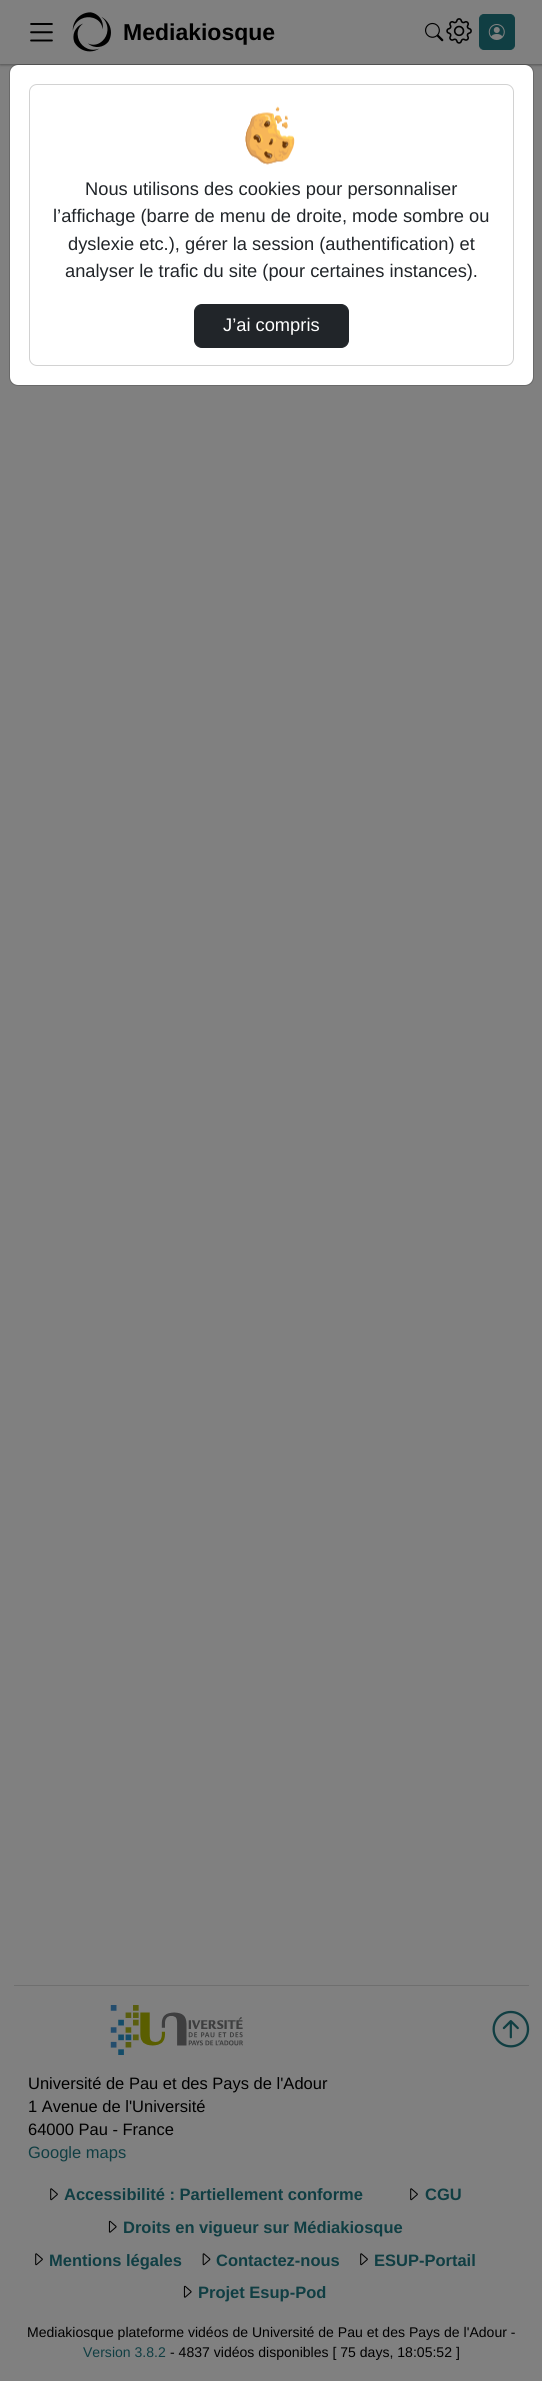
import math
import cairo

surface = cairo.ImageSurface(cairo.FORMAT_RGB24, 542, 2381)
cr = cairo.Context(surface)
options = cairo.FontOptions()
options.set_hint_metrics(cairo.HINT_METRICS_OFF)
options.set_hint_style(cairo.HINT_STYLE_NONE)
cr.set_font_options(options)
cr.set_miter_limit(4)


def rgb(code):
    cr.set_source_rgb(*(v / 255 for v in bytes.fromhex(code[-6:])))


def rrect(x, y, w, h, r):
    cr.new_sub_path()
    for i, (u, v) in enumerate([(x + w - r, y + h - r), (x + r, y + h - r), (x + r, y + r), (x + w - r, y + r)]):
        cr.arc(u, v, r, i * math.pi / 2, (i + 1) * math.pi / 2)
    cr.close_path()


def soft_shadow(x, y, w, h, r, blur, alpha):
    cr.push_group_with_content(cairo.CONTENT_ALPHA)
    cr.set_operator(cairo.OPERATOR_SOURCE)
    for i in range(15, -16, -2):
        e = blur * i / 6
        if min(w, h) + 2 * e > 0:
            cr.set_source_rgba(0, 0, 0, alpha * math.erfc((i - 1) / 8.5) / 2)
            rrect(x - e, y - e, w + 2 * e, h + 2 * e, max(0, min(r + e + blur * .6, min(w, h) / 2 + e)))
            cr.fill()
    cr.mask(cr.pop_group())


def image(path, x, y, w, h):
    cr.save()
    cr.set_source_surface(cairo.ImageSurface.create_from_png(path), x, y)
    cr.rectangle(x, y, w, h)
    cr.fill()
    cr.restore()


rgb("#808080")
cr.paint()
rgb("#000000")
soft_shadow(0, 1, 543, 64, 0, 1, 0.24)
soft_shadow(0, 1, 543, 64, 0, 2, 0.12)
rgb("#808080")
cr.rectangle(0, 0, 542, 64)
cr.fill()
image("img/1.png", 30, 23, 23, 19)
image("img/2.png", 72, 12, 39, 40)
image("img/3.png", 425, 22, 19, 20)
image("img/4.png", 446, 18, 26, 26)
rgb("#103e43")
rrect(479.5, 14.5, 35, 35, 4.5)
cr.fill_preserve()
cr.set_line_width(1)
cr.stroke()
image("img/5.png", 488, 24, 17, 16)
rgb("#ffffff")
rrect(10, 65, 523, 320, 8)
cr.fill()
rrect(9.5, 64.5, 524, 321, 8.5)
cr.set_source_rgba(0, 0, 0, 0.18)
cr.stroke()
rrect(29.5, 84.5, 484, 281, 7.5)
rgb("#d2d2d2")
cr.stroke()
image("img/6.png", 245, 106, 50, 59)
rgb("#212529")
rrect(194.5, 304.5, 154, 43, 7.5)
cr.fill_preserve()
cr.stroke()
rgb("#6f6f6f")
cr.rectangle(14, 1985, 515, 1)
cr.fill()
image("img/7.png", 492, 2010, 38, 38)
image("img/8.png", 110, 2005, 133, 50)
image("img/9.png", 50, 2188, 8, 13)
image("img/9.png", 410, 2188, 8, 13)
image("img/10.png", 108, 2220, 9, 13)
image("img/9.png", 35, 2253, 8, 13)
image("img/11.png", 202, 2253, 9, 13)
image("img/9.png", 360, 2253, 8, 13)
image("img/10.png", 183, 2285, 9, 13)
cr.select_font_face("Liberation Sans", cairo.FONT_SLANT_NORMAL, cairo.FONT_WEIGHT_BOLD)
cr.set_font_size(23)
rgb("#000000")
cr.move_to(123, 40)
cr.show_text("Mediakiosque")
cr.select_font_face("Liberation Sans")
cr.set_font_size(18.3)
rgb("#212529")
for x, y, s in [
    (85, 195, "Nous utilisons des cookies pour personnaliser"),
    (53, 222, "l’affichage (barre de menu de droite, mode sombre ou"),
    (68, 250, "dyslexie etc.), gérer la session (authentification) et"),
    (65, 277, "analyser le trafic du site (pour certaines instances)."),
]:
    cr.move_to(x, y)
    cr.show_text(s)
rgb("#ffffff")
cr.move_to(223, 331)
cr.show_text("J’ai compris")
cr.set_font_size(16.5)
rgb("#000000")
for x, y, s in [
    (28, 2089, "Université de Pau et des Pays de l'Adour"),
    (28, 2112, "1 Avenue de l'Université"),
    (28, 2135, "64000 Pau - France"),
]:
    cr.move_to(x, y)
    cr.show_text(s)
rgb("#103e43")
cr.move_to(28, 2158)
cr.show_text("Google maps")
cr.select_font_face("Liberation Sans", cairo.FONT_SLANT_NORMAL, cairo.FONT_WEIGHT_BOLD)
for x, y, s in [
    (64, 2200, "Accessibilité : Partiellement conforme"),
    (425, 2200, "CGU"),
    (123, 2233, "Droits en vigueur sur Médiakiosque"),
    (49, 2266, "Mentions légales"),
    (216, 2266, "Contactez-nous"),
    (374, 2266, "ESUP-Portail"),
    (198, 2298, "Projet Esup-Pod"),
]:
    cr.move_to(x, y)
    cr.show_text(s)
cr.select_font_face("Liberation Sans")
cr.set_font_size(14.05)
rgb("#000000")
cr.move_to(27, 2337)
cr.show_text("Mediakiosque plateforme vidéos de Université de Pau et des Pays de l'Adour -")
rgb("#103e43")
cr.move_to(83, 2357)
cr.show_text("Version 3.8.2")
rgb("#000000")
cr.move_to(170, 2357)
cr.show_text("- 4837 vidéos disponibles [ 75 days, 18:05:52 ]")
surface.write_to_png("page.png")
